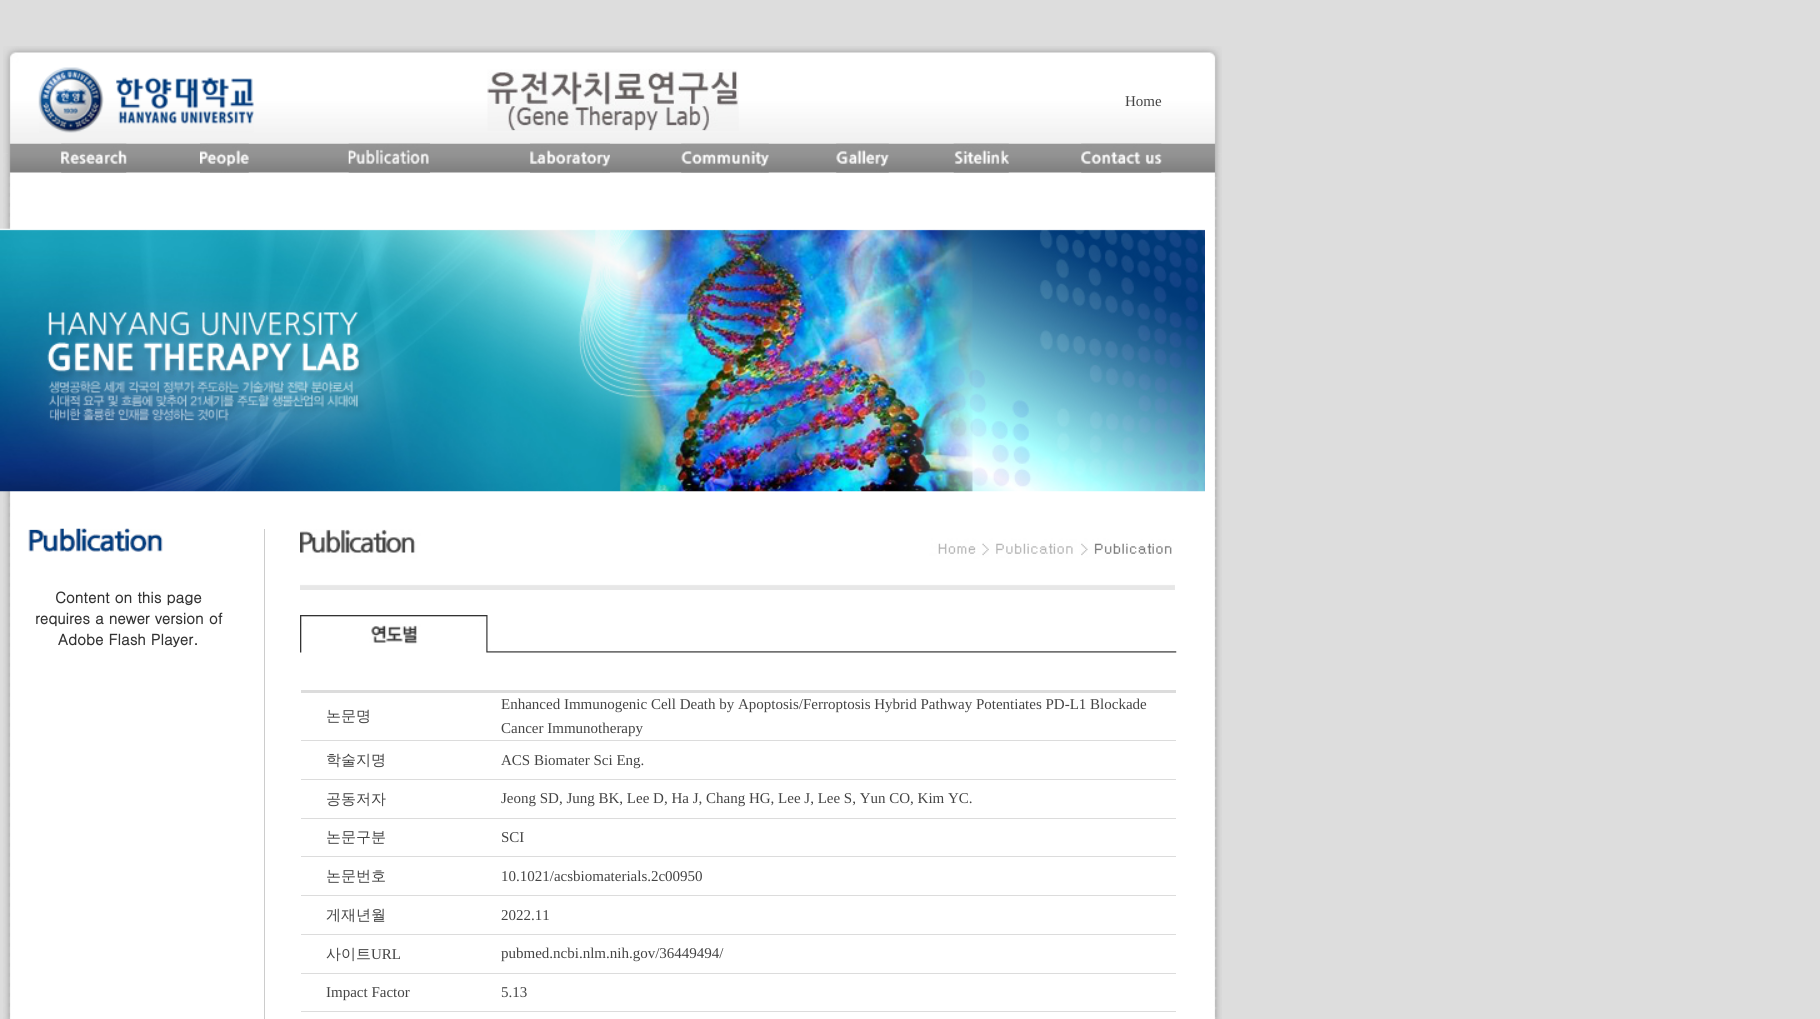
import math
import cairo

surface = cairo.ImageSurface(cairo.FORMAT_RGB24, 1820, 1019)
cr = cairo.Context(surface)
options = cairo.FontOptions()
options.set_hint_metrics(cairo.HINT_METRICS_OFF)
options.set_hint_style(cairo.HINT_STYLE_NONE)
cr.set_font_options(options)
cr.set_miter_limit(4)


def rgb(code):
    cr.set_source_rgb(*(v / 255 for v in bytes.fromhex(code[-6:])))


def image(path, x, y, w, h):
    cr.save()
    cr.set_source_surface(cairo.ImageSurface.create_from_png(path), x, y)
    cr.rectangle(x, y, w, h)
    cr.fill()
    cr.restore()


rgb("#dddddd")
cr.paint()
image("img/1.png", 3, 46, 1219, 108)
image("img/2.png", 38, 67, 216, 66)
image("img/3.png", 487, 69, 252, 62)
image("img/13.png", 3, 153, 1219, 866)
image("img/4.png", 8, 143, 1210, 30)
image("img/5.png", 61, 143, 66, 30)
image("img/6.png", 200, 143, 49, 30)
image("img/7.png", 348, 143, 82, 30)
image("img/8.png", 530, 143, 80, 30)
image("img/9.png", 681, 143, 88, 30)
image("img/10.png", 836, 143, 53, 30)
image("img/11.png", 953, 143, 56, 30)
image("img/12.png", 1081, 143, 81, 30)
image("img/14.png", 0, 228, 1205, 264)
image("img/15.png", 28, 528, 135, 24)
rgb("#cccccc")
cr.rectangle(264, 529, 1, 490)
cr.fill()
image("img/16.png", 300, 529, 875, 61)
image("img/17.png", 300, 615, 877, 38)
for x, y, w, h, color in [
    (301, 690, 875, 3, "#dcdcdc"),
    (301, 740, 875, 1, "#dcdcdc"),
    (301, 779, 875, 1, "#dcdcdc"),
    (301, 818, 875, 1, "#dcdcdc"),
    (301, 856, 875, 1, "#dcdcdc"),
    (301, 895, 875, 1, "#dcdcdc"),
    (301, 934, 875, 1, "#dcdcdc"),
    (301, 973, 875, 1, "#dcdcdc"),
    (301, 1011, 875, 1, "#dcdcdc"),
]:
    rgb(color)
    cr.rectangle(x, y, w, h)
    cr.fill()
cr.select_font_face("Liberation Serif")
cr.set_font_size(15)
rgb("#444444")
cr.move_to(1125, 106)
cr.show_text("Home")
cr.select_font_face("Dotum", cairo.FONT_SLANT_NORMAL, cairo.FONT_WEIGHT_BOLD)
rgb("#333333")
for x, y, s in [
    (55, 603, "Content on this page"),
    (35, 624, "requires a newer version of"),
    (58, 645, "Adobe Flash Player."),
]:
    cr.move_to(x, y)
    cr.show_text(s)
cr.select_font_face("WenQuanYi Zen Hei Medium")
rgb("#444444")
cr.move_to(326, 721)
cr.show_text("논문명")
cr.select_font_face("Liberation Serif")
cr.move_to(501, 709)
cr.show_text("Enhanced Immunogenic Cell Death by Apoptosis/Ferroptosis Hybrid Pathway Potentiates PD-L1 Blockade")
cr.move_to(501, 733)
cr.show_text("Cancer Immunotherapy")
cr.select_font_face("WenQuanYi Zen Hei Medium")
cr.move_to(326, 765)
cr.show_text("학술지명")
cr.select_font_face("Liberation Serif")
cr.move_to(501, 765)
cr.show_text("ACS Biomater Sci Eng.")
cr.select_font_face("WenQuanYi Zen Hei Medium")
cr.move_to(326, 804)
cr.show_text("공동저자")
cr.select_font_face("Liberation Serif")
cr.move_to(501, 803)
cr.show_text("Jeong SD, Jung BK, Lee D, Ha J, Chang HG, Lee J, Lee S, Yun CO, Kim YC.")
cr.select_font_face("WenQuanYi Zen Hei Medium")
cr.move_to(326, 842)
cr.show_text("논문구분")
cr.select_font_face("Liberation Serif")
cr.move_to(501, 842)
cr.show_text("SCI")
cr.select_font_face("WenQuanYi Zen Hei Medium")
cr.move_to(326, 881)
cr.show_text("논문번호")
cr.select_font_face("Liberation Serif")
cr.move_to(501, 881)
cr.show_text("10.1021/acsbiomaterials.2c00950")
cr.select_font_face("WenQuanYi Zen Hei Medium")
cr.move_to(326, 920)
cr.show_text("게재년월")
cr.select_font_face("Liberation Serif")
cr.move_to(501, 920)
cr.show_text("2022.11")
cr.select_font_face("WenQuanYi Zen Hei Medium")
cr.move_to(326, 959)
cr.show_text("사이트")
cr.select_font_face("Liberation Serif")
for x, y, s in [
    (371, 959, "URL"),
    (501, 958, "pubmed.ncbi.nlm.nih.gov/36449494/"),
    (326, 997, "Impact Factor"),
    (501, 997, "5.13"),
]:
    cr.move_to(x, y)
    cr.show_text(s)
surface.write_to_png("page.png")
